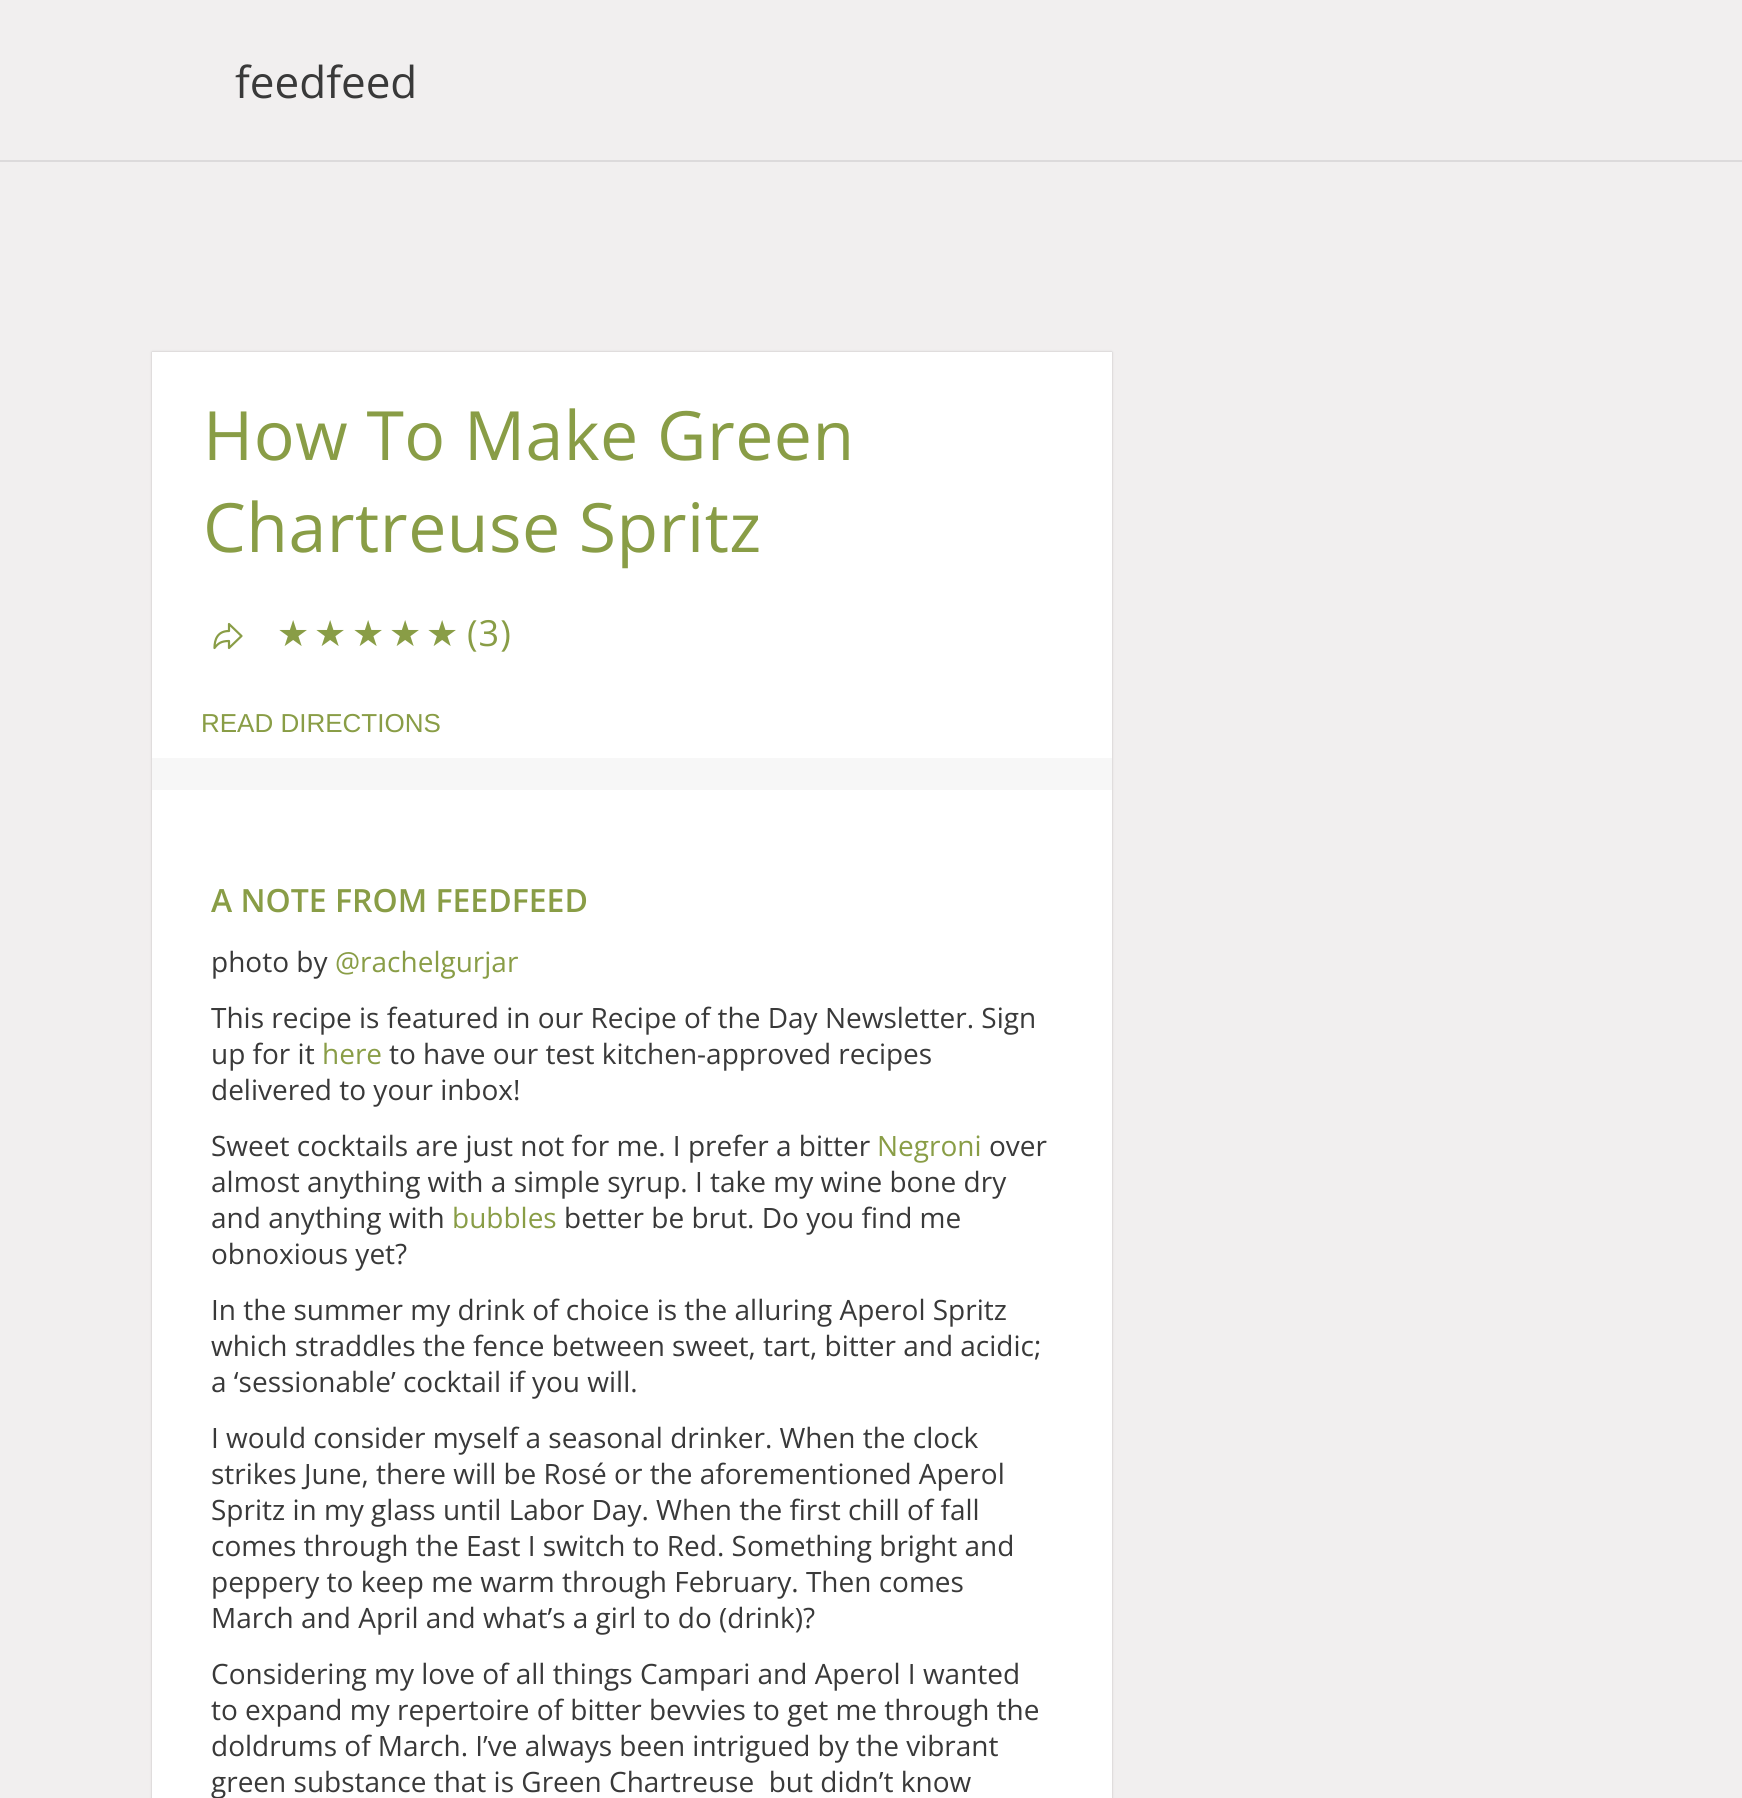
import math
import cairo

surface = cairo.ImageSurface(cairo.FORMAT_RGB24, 1742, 1798)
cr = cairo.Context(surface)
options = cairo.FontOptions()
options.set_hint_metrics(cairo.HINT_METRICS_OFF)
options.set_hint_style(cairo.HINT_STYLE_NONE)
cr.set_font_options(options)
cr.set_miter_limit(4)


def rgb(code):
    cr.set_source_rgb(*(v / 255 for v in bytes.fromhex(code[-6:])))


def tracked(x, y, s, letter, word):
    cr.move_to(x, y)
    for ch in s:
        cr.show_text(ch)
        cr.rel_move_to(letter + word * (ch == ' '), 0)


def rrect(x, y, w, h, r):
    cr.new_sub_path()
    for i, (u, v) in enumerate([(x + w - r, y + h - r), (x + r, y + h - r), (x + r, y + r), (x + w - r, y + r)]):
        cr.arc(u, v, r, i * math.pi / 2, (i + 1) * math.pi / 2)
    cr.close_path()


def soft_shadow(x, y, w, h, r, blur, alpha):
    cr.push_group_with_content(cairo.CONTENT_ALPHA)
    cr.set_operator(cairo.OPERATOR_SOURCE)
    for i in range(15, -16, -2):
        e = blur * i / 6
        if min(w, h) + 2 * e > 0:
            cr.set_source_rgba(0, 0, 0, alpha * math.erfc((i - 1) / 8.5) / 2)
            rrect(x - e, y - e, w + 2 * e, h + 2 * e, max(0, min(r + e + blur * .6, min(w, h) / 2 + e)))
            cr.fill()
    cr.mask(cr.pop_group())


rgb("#f1efef")
cr.paint()
rgb("#dcdadb")
cr.rectangle(0, 160, 1742, 2)
cr.fill()
rgb("#bdbbbc")
soft_shadow(152, 352, 960, 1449, 0, 1, 1)
rgb("#ffffff")
cr.rectangle(152, 352, 960, 1446)
cr.fill()
cr.new_path()
cr.move_to(241.5, 636)
cr.line_to(229, 624)
cr.line_to(229, 631)
cr.curve_to(217.5, 631, 214.5, 639.5, 214.5, 648)
cr.curve_to(218, 643.5, 221, 641, 229, 641)
cr.line_to(229, 648)
cr.close_path()
rgb("#899d46")
cr.set_line_width(2.2)
cr.set_line_join(cairo.LINE_JOIN_ROUND)
cr.stroke()
rgb("#f7f7f7")
cr.rectangle(152, 758, 960, 32)
cr.fill()
cr.select_font_face("Open Sans")
cr.set_font_size(44)
rgb("#393939")
cr.move_to(235, 98)
cr.show_text("feedfeed")
cr.set_font_size(68)
rgb("#899d46")
tracked(203, 460, "How To Make Green", 0.5, 0)
tracked(203, 552, "Chartreuse Spritz", 0.5, 0)
cr.select_font_face("DejaVu Sans")
cr.set_font_size(36)
for x, y, s in [
    (277, 646, "★"),
    (314, 646, "★"),
    (352, 646, "★"),
    (389, 646, "★"),
    (426, 646, "★"),
]:
    tracked(x, y, s, 1, 0)
cr.select_font_face("Open Sans")
tracked(467, 646, "(3)", 1, 0)
cr.select_font_face("Liberation Sans")
cr.set_font_size(26)
cr.move_to(201, 732)
cr.show_text("READ DIRECTIONS")
cr.select_font_face("Open Sans SemiBold")
cr.set_font_size(32)
cr.move_to(211, 912)
cr.show_text("A NOTE FROM FEEDFEED")
cr.select_font_face("Open Sans")
cr.set_font_size(28)
rgb("#393939")
cr.move_to(211, 972)
cr.show_text("photo by")
rgb("#899d46")
cr.move_to(335, 972)
cr.show_text("@rachelgurjar")
rgb("#393939")
cr.move_to(211, 1028)
cr.show_text("This recipe is featured in our Recipe of the Day Newsletter. Sign")
cr.move_to(211, 1064)
cr.show_text("up for it")
rgb("#899d46")
cr.move_to(322, 1064)
cr.show_text("here")
rgb("#393939")
for x, y, s in [
    (389, 1064, "to have our test kitchen-approved recipes"),
    (211, 1100, "delivered to your inbox!"),
    (211, 1156, "Sweet cocktails are just not for me. I prefer a bitter"),
]:
    cr.move_to(x, y)
    cr.show_text(s)
rgb("#899d46")
cr.move_to(877, 1156)
cr.show_text("Negroni")
rgb("#393939")
for x, y, s in [
    (989, 1156, "over"),
    (211, 1192, "almost anything with a simple syrup. I take my wine bone dry"),
    (211, 1228, "and anything with"),
]:
    cr.move_to(x, y)
    cr.show_text(s)
rgb("#899d46")
cr.move_to(452, 1228)
cr.show_text("bubbles")
rgb("#393939")
for x, y, s in [
    (564, 1228, "better be brut. Do you find me"),
    (211, 1264, "obnoxious yet?"),
    (211, 1320, "In the summer my drink of choice is the alluring Aperol Spritz"),
    (211, 1356, "which straddles the fence between sweet, tart, bitter and acidic;"),
    (211, 1392, "a ‘sessionable’ cocktail if you will."),
    (211, 1448, "I would consider myself a seasonal drinker. When the clock"),
    (211, 1484, "strikes June, there will be Rosé or the aforementioned Aperol"),
    (211, 1520, "Spritz in my glass until Labor Day. When the first chill of fall"),
    (211, 1556, "comes through the East I switch to Red. Something bright and"),
    (211, 1592, "peppery to keep me warm through February. Then comes"),
    (211, 1628, "March and April and what’s a girl to do (drink)?"),
    (211, 1684, "Considering my love of all things Campari and Aperol I wanted"),
    (211, 1720, "to expand my repertoire of bitter bevvies to get me through the"),
    (211, 1756, "doldrums of March. I’ve always been intrigued by the vibrant"),
    (211, 1792, "green substance that is Green Chartreuse  but didn’t know"),
]:
    cr.move_to(x, y)
    cr.show_text(s)
surface.write_to_png("page.png")
